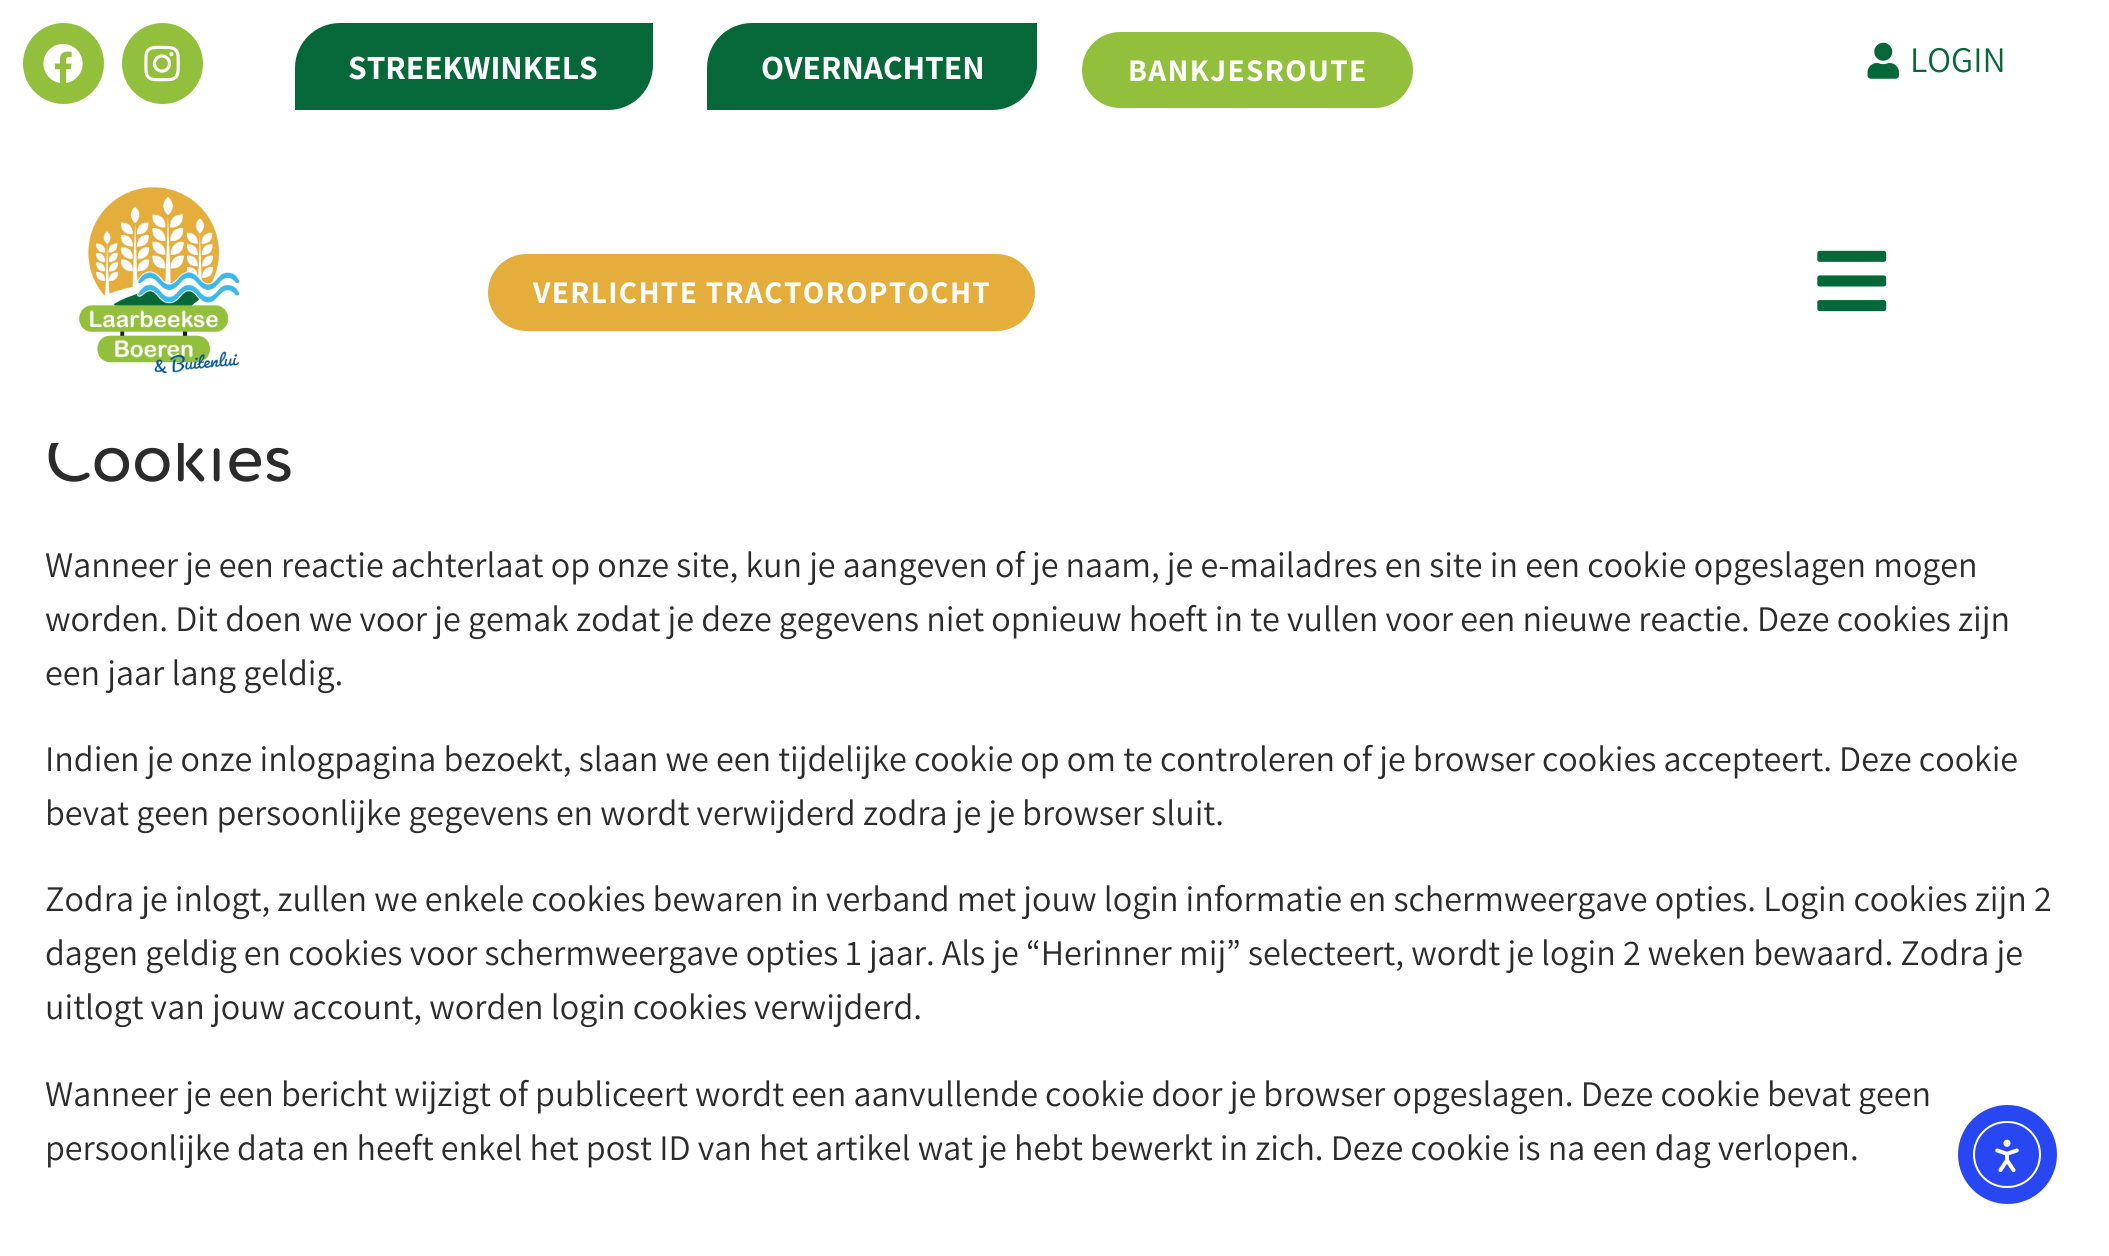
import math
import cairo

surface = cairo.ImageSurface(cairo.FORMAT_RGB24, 2109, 1256)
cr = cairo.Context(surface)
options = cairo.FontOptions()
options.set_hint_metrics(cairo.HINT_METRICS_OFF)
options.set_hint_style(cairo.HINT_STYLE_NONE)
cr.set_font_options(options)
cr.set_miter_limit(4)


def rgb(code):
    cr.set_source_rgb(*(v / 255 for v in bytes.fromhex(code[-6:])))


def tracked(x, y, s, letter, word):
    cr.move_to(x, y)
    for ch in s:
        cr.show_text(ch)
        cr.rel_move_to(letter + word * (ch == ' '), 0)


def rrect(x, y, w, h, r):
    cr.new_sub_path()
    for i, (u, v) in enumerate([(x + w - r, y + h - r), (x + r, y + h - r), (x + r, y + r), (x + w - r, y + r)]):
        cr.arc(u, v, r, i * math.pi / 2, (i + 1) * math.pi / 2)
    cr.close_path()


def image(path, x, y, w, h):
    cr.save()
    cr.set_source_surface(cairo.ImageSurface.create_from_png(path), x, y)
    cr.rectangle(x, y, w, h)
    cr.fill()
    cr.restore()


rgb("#ffffff")
cr.paint()
rgb("#92c03c")
cr.arc(63.5, 63.5, 40.5, 0, 2 * math.pi)
cr.fill()
image("img/1.png", 43, 43, 40, 40)
cr.arc(162.5, 63.5, 40.5, 0, 2 * math.pi)
cr.fill()
image("img/2.png", 144, 45, 36, 37)
rgb("#066839")
cr.new_path()
cr.move_to(340, 23)
cr.line_to(653, 23)
cr.line_to(653, 65)
cr.curve_to(653, 90, 633, 110, 608, 110)
cr.line_to(295, 110)
cr.line_to(295, 68)
cr.curve_to(295, 43, 315, 23, 340, 23)
cr.close_path()
cr.fill()
cr.new_path()
cr.move_to(752, 23)
cr.line_to(1037, 23)
cr.line_to(1037, 65)
cr.curve_to(1037, 90, 1017, 110, 992, 110)
cr.line_to(707, 110)
cr.line_to(707, 68)
cr.curve_to(707, 43, 727, 23, 752, 23)
cr.close_path()
cr.fill()
rgb("#92c03c")
rrect(1082, 32, 331, 76, 38)
cr.fill()
image("img/3.png", 1867, 42, 32, 37)
image("img/4.png", 79, 187, 161, 187)
rgb("#e5ad3c")
rrect(488, 254, 547, 77, 38.5)
cr.fill()
image("img/5.png", 1817, 250, 70, 62)
rgb("#2847f3")
cr.arc(2007.5, 1154.5, 49.5, 0, 2 * math.pi)
cr.fill()
rrect(1974, 1122, 66, 65, 32.5)
rgb("#ffffff")
cr.stroke()
image("img/6.png", 1995, 1139, 24, 34)
cr.select_font_face("Assistant", cairo.FONT_SLANT_NORMAL, cairo.FONT_WEIGHT_BOLD)
cr.set_font_size(33.75)
cr.move_to(348, 79)
cr.show_text("STREEKWINKELS")
cr.move_to(761, 79)
cr.show_text("OVERNACHTEN")
cr.set_font_size(31.5)
tracked(1128, 81, "BANKJESROUTE", 1.35, 0)
cr.select_font_face("Assistant")
cr.set_font_size(36)
rgb("#066839")
cr.move_to(1910, 72)
cr.show_text("LOGIN")
cr.select_font_face("Assistant", cairo.FONT_SLANT_NORMAL, cairo.FONT_WEIGHT_BOLD)
cr.set_font_size(31.5)
rgb("#ffffff")
tracked(533, 303, "VERLICHTE TRACTOROPTOCHT", 1.35, 0)
cr.select_font_face("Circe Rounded")
cr.set_font_size(72)
rgb("#2b2b2b")
cr.move_to(45, 481)
cr.show_text("Cookies")
rgb("#ffffff")
cr.rectangle(51, 429, 170, 14)
cr.fill()
cr.select_font_face("Assistant")
cr.set_font_size(36)
rgb("#2b2b2b")
for x, y, s in [
    (45, 577, "Wanneer je een reactie achterlaat op onze site, kun je aangeven of je naam, je e-mailadres en site in een cookie opgeslagen mogen"),
    (45, 631, "worden. Dit doen we voor je gemak zodat je deze gegevens niet opnieuw hoeft in te vullen voor een nieuwe reactie. Deze cookies zijn"),
    (45, 685, "een jaar lang geldig."),
    (45, 771, "Indien je onze inlogpagina bezoekt, slaan we een tijdelijke cookie op om te controleren of je browser cookies accepteert. Deze cookie"),
    (45, 825, "bevat geen persoonlijke gegevens en wordt verwijderd zodra je je browser sluit."),
    (45, 911, "Zodra je inlogt, zullen we enkele cookies bewaren in verband met jouw login informatie en schermweergave opties. Login cookies zijn 2"),
    (45, 965, "dagen geldig en cookies voor schermweergave opties 1 jaar. Als je “Herinner mij” selecteert, wordt je login 2 weken bewaard. Zodra je"),
    (45, 1019, "uitlogt van jouw account, worden login cookies verwijderd."),
    (45, 1106, "Wanneer je een bericht wijzigt of publiceert wordt een aanvullende cookie door je browser opgeslagen. Deze cookie bevat geen"),
    (45, 1160, "persoonlijke data en heeft enkel het post ID van het artikel wat je hebt bewerkt in zich. Deze cookie is na een dag verlopen."),
]:
    cr.move_to(x, y)
    cr.show_text(s)
surface.write_to_png("page.png")
